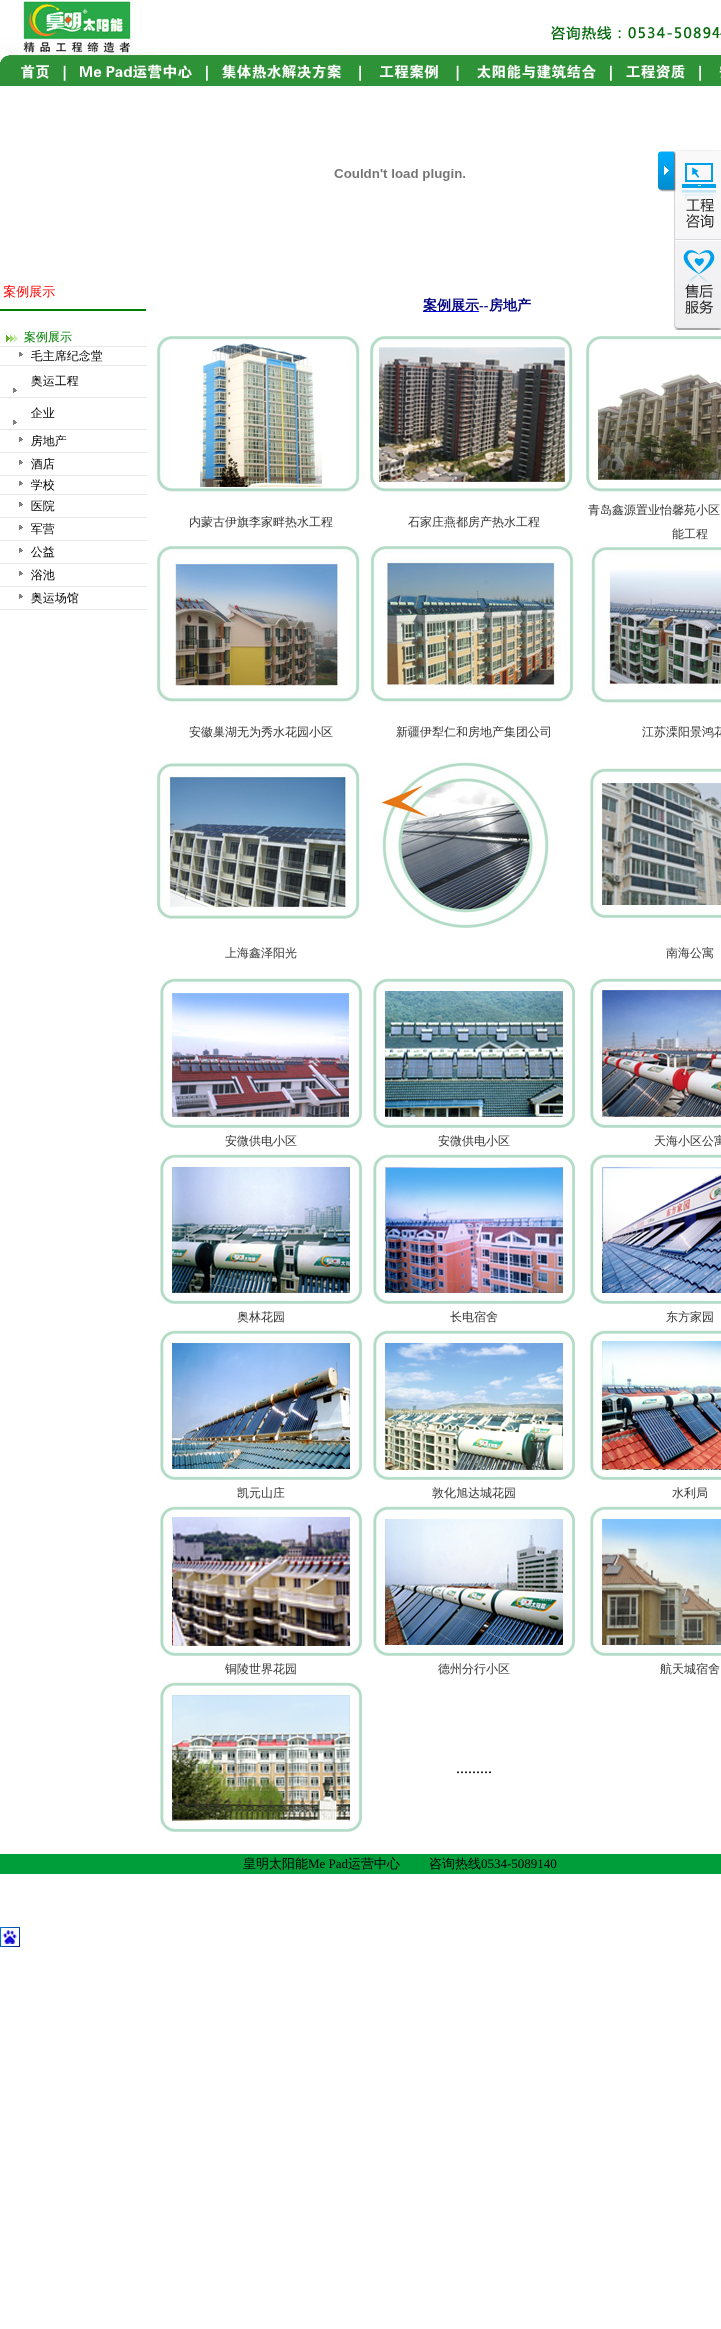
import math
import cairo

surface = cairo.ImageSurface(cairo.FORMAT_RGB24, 721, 2329)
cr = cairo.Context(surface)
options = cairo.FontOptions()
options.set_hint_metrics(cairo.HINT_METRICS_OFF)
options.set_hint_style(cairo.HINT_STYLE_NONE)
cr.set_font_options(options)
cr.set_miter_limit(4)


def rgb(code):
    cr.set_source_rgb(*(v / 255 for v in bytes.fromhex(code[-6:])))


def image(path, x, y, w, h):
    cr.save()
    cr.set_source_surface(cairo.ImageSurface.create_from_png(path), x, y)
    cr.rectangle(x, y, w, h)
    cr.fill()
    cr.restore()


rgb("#ffffff")
cr.paint()
image("img/2.png", 674, 150, 47, 180)
image("img/1.png", 658, 151, 18, 41)
image("img/3.png", 0, 0, 721, 88)
image("img/4.png", 334, 169, 131, 12)
image("img/5.png", 0, 284, 147, 326)
rgb("#0000ee")
cr.rectangle(423, 311, 56, 1)
cr.fill()
image("img/6.png", 157, 336, 208, 160)
image("img/7.png", 370, 336, 208, 160)
image("img/8.png", 586, 336, 135, 159)
image("img/9.png", 157, 546, 207, 160)
image("img/10.png", 369, 546, 208, 160)
image("img/11.png", 587, 547, 134, 158)
image("img/12.png", 157, 762, 207, 160)
image("img/13.png", 376, 758, 173, 170)
image("img/14.png", 589, 767, 132, 152)
image("img/15.png", 159, 977, 203, 152)
image("img/16.png", 372, 977, 203, 152)
image("img/17.png", 589, 977, 132, 152)
image("img/18.png", 159, 1153, 203, 152)
image("img/19.png", 372, 1153, 203, 152)
image("img/20.png", 589, 1153, 132, 152)
image("img/21.png", 159, 1329, 203, 152)
image("img/22.png", 372, 1329, 203, 152)
image("img/23.png", 589, 1329, 132, 152)
image("img/24.png", 159, 1505, 203, 152)
image("img/25.png", 372, 1505, 203, 152)
image("img/26.png", 589, 1505, 132, 152)
image("img/27.png", 159, 1682, 203, 151)
rgb("#009e3b")
cr.rectangle(0, 1854, 721, 20)
cr.fill()
image("img/28.png", 0, 1927, 20, 20)
cr.select_font_face("WenQuanYi Zen Hei", cairo.FONT_SLANT_NORMAL, cairo.FONT_WEIGHT_BOLD)
cr.set_font_size(14)
rgb("#000080")
cr.move_to(423, 310)
cr.show_text("案例展示")
cr.select_font_face("Liberation Serif", cairo.FONT_SLANT_NORMAL, cairo.FONT_WEIGHT_BOLD)
cr.move_to(479, 310)
cr.show_text("--")
cr.select_font_face("WenQuanYi Zen Hei", cairo.FONT_SLANT_NORMAL, cairo.FONT_WEIGHT_BOLD)
cr.move_to(489, 310)
cr.show_text("房地产")
cr.select_font_face("WenQuanYi Zen Hei Medium")
cr.set_font_size(12)
rgb("#333333")
for x, y, s in [
    (189, 526, "内蒙古伊旗李家畔热水工程"),
    (408, 526, "石家庄燕都房产热水工程"),
    (588, 514, "青岛鑫源置业怡馨苑小区"),
    (672, 538, "能工程"),
    (189, 736, "安徽巢湖无为秀水花园小区"),
    (396, 736, "新疆伊犁仁和房地产集团公司"),
    (642, 736, "江苏溧阳景鸿花"),
    (225, 957, "上海鑫泽阳光"),
    (666, 957, "南海公寓"),
    (225, 1145, "安微供电小区"),
    (438, 1145, "安微供电小区"),
    (654, 1145, "天海小区公寓"),
    (237, 1321, "奥林花园"),
    (450, 1321, "长电宿舍"),
    (666, 1321, "东方家园"),
    (237, 1497, "凯元山庄"),
    (432, 1497, "敦化旭达城花园"),
    (672, 1497, "水利局"),
    (225, 1673, "铜陵世界花园"),
    (438, 1673, "德州分行小区"),
    (660, 1673, "航天城宿舍"),
]:
    cr.move_to(x, y)
    cr.show_text(s)
cr.select_font_face("Liberation Serif")
cr.set_font_size(16)
rgb("#000000")
cr.move_to(456, 1773)
cr.show_text(".........")
cr.select_font_face("WenQuanYi Zen Hei Medium")
cr.set_font_size(13)
cr.move_to(243, 1868)
cr.show_text("皇明太阳能")
cr.select_font_face("Liberation Serif")
cr.move_to(308, 1868)
cr.show_text("Me Pad")
cr.select_font_face("WenQuanYi Zen Hei Medium")
cr.move_to(348, 1868)
cr.show_text("运营中心")
cr.move_to(429, 1868)
cr.show_text("咨询热线")
cr.select_font_face("Liberation Serif")
cr.move_to(481, 1868)
cr.show_text("0534-5089140")
surface.write_to_png("page.png")
